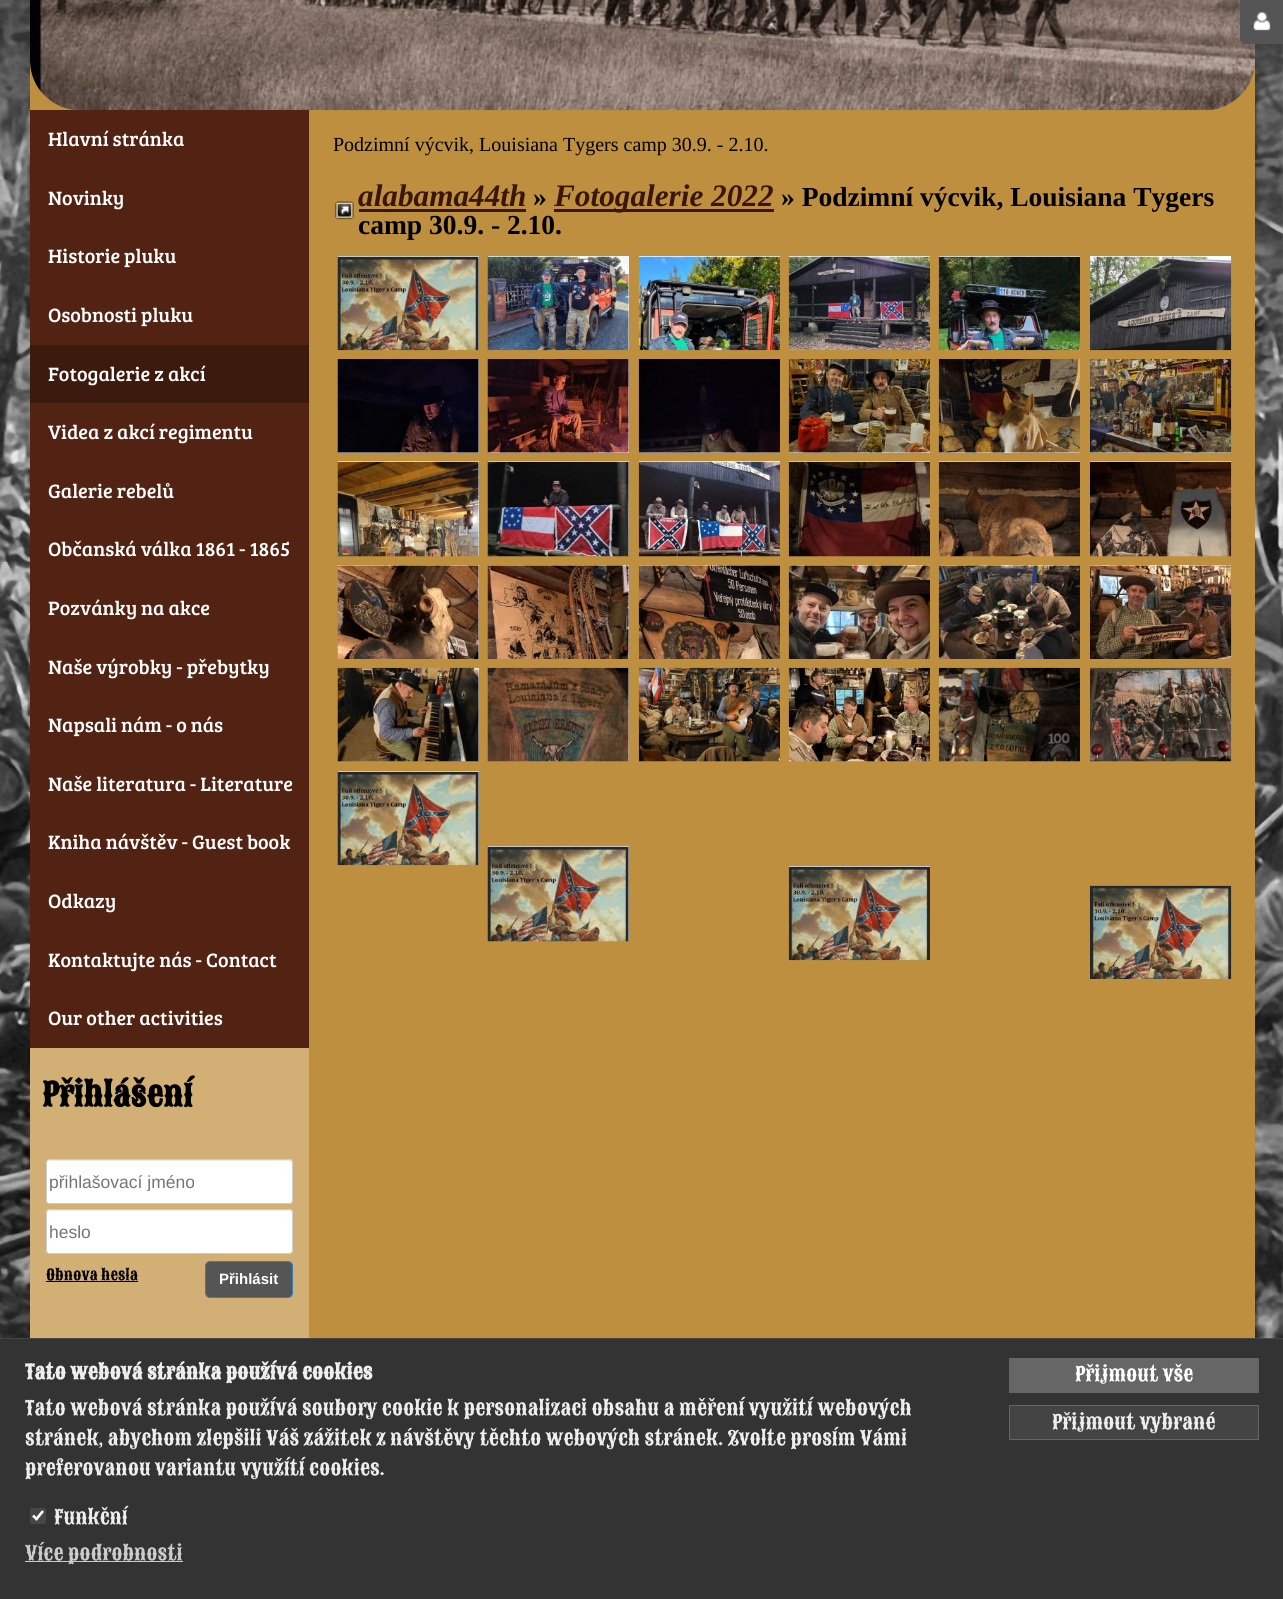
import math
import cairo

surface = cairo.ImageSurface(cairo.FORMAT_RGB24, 1283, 1599)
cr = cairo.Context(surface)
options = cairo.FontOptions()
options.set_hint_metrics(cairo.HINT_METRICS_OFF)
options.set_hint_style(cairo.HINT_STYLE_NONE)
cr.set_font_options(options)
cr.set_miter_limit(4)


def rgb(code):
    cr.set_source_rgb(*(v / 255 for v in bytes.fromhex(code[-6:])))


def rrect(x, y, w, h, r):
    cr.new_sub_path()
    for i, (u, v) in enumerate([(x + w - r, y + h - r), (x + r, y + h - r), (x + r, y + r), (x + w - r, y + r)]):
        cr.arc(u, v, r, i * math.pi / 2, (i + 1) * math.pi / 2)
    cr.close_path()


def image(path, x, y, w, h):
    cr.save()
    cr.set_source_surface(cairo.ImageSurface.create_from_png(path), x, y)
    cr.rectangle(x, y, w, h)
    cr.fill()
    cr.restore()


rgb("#ffffff")
cr.paint()
image("img/2.png", 0, 0, 1283, 1338)
rgb("#bd8f3e")
cr.rectangle(30, 61, 1225, 1277)
cr.fill()
image("img/3.png", 30, 0, 1225, 111)
rgb("#555555")
cr.set_fill_rule(cairo.FILL_RULE_EVEN_ODD)
cr.new_path()
cr.move_to(1240, 0)
cr.line_to(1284, 0)
cr.line_to(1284, 44)
cr.line_to(1245, 44)
cr.curve_to(1242, 44, 1240, 42, 1240, 39)
cr.close_path()
cr.move_to(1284, 0)
cr.line_to(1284, 41)
cr.line_to(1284, 39)
cr.close_path()
cr.fill()
image("img/1.png", 1253, 12, 18, 19)
for x, y, w, h, color in [
    (30, 1048, 279, 290, "#d1af75"),
    (30, 110, 279, 235, "#522313"),
    (30, 345, 279, 58, "#3d1a0e"),
    (30, 403, 279, 645, "#522313"),
]:
    rgb(color)
    cr.rectangle(x, y, w, h)
    cr.fill()
rgb("#ffffff")
rrect(46, 1159, 247, 45, 4)
cr.fill()
rgb("#ececec")
cr.set_fill_rule(cairo.FILL_RULE_WINDING)
cr.new_path()
cr.move_to(50, 1161)
cr.line_to(289, 1161)
cr.curve_to(290, 1161, 291, 1162, 291, 1164)
cr.line_to(291, 1162)
cr.curve_to(291, 1161, 290, 1160, 288, 1160)
cr.line_to(50, 1160)
cr.curve_to(49, 1160, 48, 1161, 48, 1162)
cr.line_to(48, 1164)
cr.curve_to(48, 1162, 49, 1161, 50, 1161)
cr.close_path()
cr.fill()
rrect(46.5, 1159.5, 246, 44, 3.5)
rgb("#cccccc")
cr.set_line_width(1)
cr.stroke()
rgb("#ffffff")
rrect(46, 1209, 247, 45, 4)
cr.fill()
rgb("#ececec")
cr.new_path()
cr.move_to(50, 1211)
cr.line_to(289, 1211)
cr.curve_to(290, 1211, 291, 1212, 291, 1214)
cr.line_to(291, 1212)
cr.curve_to(291, 1211, 290, 1210, 288, 1210)
cr.line_to(50, 1210)
cr.curve_to(49, 1210, 48, 1211, 48, 1212)
cr.line_to(48, 1214)
cr.curve_to(48, 1212, 49, 1211, 50, 1211)
cr.close_path()
cr.fill()
rrect(46.5, 1209.5, 246, 44, 3.5)
rgb("#cccccc")
cr.stroke()
rgb("#000000")
cr.rectangle(46, 1281, 92, 1)
cr.fill()
rgb("#555555")
rrect(205.5, 1261.5, 87, 36, 4.5)
cr.fill_preserve()
rgb("#357ebd")
cr.stroke()
image("img/4.png", 334, 201, 20, 19)
for x, y, w, h, color in [
    (359, 209, 167, 3, "#391608"),
    (554, 209, 220, 3, "#391608"),
    (338, 256, 141, 94, "#ffffff"),
]:
    rgb(color)
    cr.rectangle(x, y, w, h)
    cr.fill()
image("img/5.png", 337, 256, 142, 95)
cr.rectangle(488, 256, 141, 94)
cr.fill()
image("img/6.png", 487, 256, 142, 95)
cr.rectangle(639, 256, 141, 1)
cr.fill()
image("img/7.png", 638, 256, 142, 95)
cr.rectangle(789, 256, 141, 1)
cr.fill()
image("img/8.png", 788, 256, 142, 95)
cr.rectangle(939, 256, 141, 1)
cr.fill()
image("img/9.png", 938, 256, 142, 95)
cr.rectangle(1090, 256, 141, 1)
cr.fill()
image("img/10.png", 1090, 256, 142, 95)
cr.rectangle(338, 359, 141, 94)
cr.fill()
image("img/11.png", 337, 359, 142, 94)
cr.rectangle(488, 359, 141, 94)
cr.fill()
image("img/12.png", 487, 359, 142, 94)
cr.rectangle(639, 452, 141, 1)
cr.fill()
image("img/13.png", 638, 359, 142, 94)
cr.rectangle(789, 452, 141, 1)
cr.fill()
image("img/14.png", 788, 359, 142, 94)
cr.rectangle(939, 452, 141, 1)
cr.fill()
image("img/15.png", 938, 359, 142, 94)
cr.rectangle(1090, 452, 141, 1)
cr.fill()
image("img/16.png", 1090, 359, 142, 94)
cr.rectangle(338, 461, 141, 95)
cr.fill()
image("img/17.png", 337, 461, 142, 96)
cr.rectangle(488, 461, 141, 95)
cr.fill()
image("img/18.png", 487, 461, 142, 96)
cr.rectangle(639, 461, 141, 1)
cr.fill()
image("img/19.png", 638, 461, 142, 96)
cr.rectangle(789, 461, 141, 1)
cr.fill()
image("img/20.png", 788, 461, 142, 96)
cr.rectangle(939, 461, 141, 1)
cr.fill()
image("img/21.png", 938, 461, 142, 96)
cr.rectangle(1090, 461, 141, 1)
cr.fill()
image("img/22.png", 1090, 461, 142, 96)
cr.rectangle(338, 565, 141, 94)
cr.fill()
image("img/23.png", 337, 565, 142, 94)
cr.rectangle(488, 565, 141, 94)
cr.fill()
image("img/24.png", 487, 565, 142, 94)
cr.rectangle(639, 565, 141, 1)
cr.fill()
image("img/25.png", 638, 565, 142, 94)
cr.rectangle(789, 565, 141, 1)
cr.fill()
image("img/26.png", 788, 565, 142, 94)
cr.rectangle(939, 565, 141, 1)
cr.fill()
image("img/27.png", 938, 565, 142, 94)
cr.rectangle(1090, 565, 141, 1)
cr.fill()
image("img/28.png", 1090, 565, 142, 94)
cr.rectangle(478, 668, 1, 93)
cr.fill()
image("img/29.png", 337, 667, 142, 95)
cr.rectangle(628, 668, 1, 93)
cr.fill()
image("img/30.png", 487, 667, 142, 95)
image("img/31.png", 638, 667, 142, 95)
image("img/32.png", 788, 667, 142, 95)
image("img/33.png", 938, 667, 142, 95)
image("img/34.png", 1090, 667, 142, 95)
cr.rectangle(338, 771, 141, 94)
cr.fill()
image("img/5.png", 337, 771, 142, 95)
cr.rectangle(488, 846, 141, 95)
cr.fill()
image("img/35.png", 487, 846, 142, 96)
cr.rectangle(789, 866, 141, 1)
cr.fill()
image("img/36.png", 788, 866, 142, 95)
cr.rectangle(1090, 885, 141, 1)
cr.fill()
image("img/37.png", 1090, 885, 142, 94)
rgb("#333333")
cr.rectangle(0, 1339, 1283, 260)
cr.fill()
rgb("#444444")
cr.rectangle(0, 1338, 1283, 1)
cr.fill()
rgb("#474747")
rrect(30, 1508, 16, 16, 2.5)
cr.fill()
cr.new_path()
cr.move_to(33, 1515.5)
cr.line_to(36.5, 1519)
cr.line_to(43, 1511)
rgb("#ffffff")
cr.set_line_width(2.6)
cr.stroke()
rgb("#cccccc")
cr.rectangle(25, 1561, 158, 1)
cr.fill()
rgb("#666666")
cr.rectangle(1009, 1358, 250, 35)
cr.fill()
rgb("#444444")
cr.rectangle(1009.5, 1405.5, 249, 34)
cr.fill_preserve()
rgb("#666666")
cr.set_line_width(1)
cr.stroke()
cr.select_font_face("Bree Serif")
cr.set_font_size(20)
rgb("#ffffff")
for x, y, s in [
    (48, 146, "Hlavní stránka"),
    (48, 205, "Novinky"),
    (48, 263, "Historie pluku"),
    (48, 322, "Osobnosti pluku"),
    (48, 381, "Fotogalerie z akcí"),
    (48, 439, "Videa z akcí regimentu"),
    (48, 498, "Galerie rebelů"),
    (48, 556, "Občanská válka 1861 - 1865"),
    (48, 615, "Pozvánky na akce"),
    (48, 674, "Naše výrobky - přebytky"),
    (48, 732, "Napsali nám - o nás"),
    (48, 791, "Naše literatura - Literature"),
    (48, 849, "Kniha návštěv - Guest book"),
    (48, 908, "Odkazy"),
    (48, 967, "Kontaktujte nás - Contact"),
    (48, 1025, "Our other activities"),
]:
    cr.move_to(x, y)
    cr.show_text(s)
cr.select_font_face("Sancreek", cairo.FONT_SLANT_NORMAL, cairo.FONT_WEIGHT_BOLD)
cr.set_font_size(32.5)
rgb("#000000")
cr.move_to(42, 1106)
cr.show_text("Přihlášení")
cr.save()
cr.rectangle(50, 1171, 239, 20)
cr.clip()
cr.select_font_face("Liberation Sans")
cr.set_font_size(17.5)
rgb("#757575")
cr.move_to(49, 1188)
cr.show_text("přihlašovací jméno")
cr.restore()
cr.select_font_face("Liberation Sans")
cr.set_font_size(17.5)
rgb("#757575")
cr.move_to(49, 1238)
cr.show_text("heslo")
cr.select_font_face("Sancreek")
cr.set_font_size(15)
rgb("#000000")
cr.move_to(46, 1280)
cr.show_text("Obnova hesla")
cr.select_font_face("Liberation Sans", cairo.FONT_SLANT_NORMAL, cairo.FONT_WEIGHT_BOLD)
rgb("#ffffff")
cr.move_to(219, 1284)
cr.show_text("Přihlásit")
cr.select_font_face("Liberation Serif")
cr.set_font_size(20)
rgb("#000000")
cr.move_to(333, 151)
cr.show_text("Podzimní výcvik, Louisiana Tygers camp 30.9. - 2.10.")
cr.select_font_face("Liberation Serif", cairo.FONT_SLANT_ITALIC, cairo.FONT_WEIGHT_BOLD)
cr.set_font_size(31.25)
rgb("#391608")
cr.move_to(358, 206)
cr.show_text("alabama44th")
cr.select_font_face("Liberation Serif", cairo.FONT_SLANT_NORMAL, cairo.FONT_WEIGHT_BOLD)
cr.set_font_size(27.5)
rgb("#000000")
cr.move_to(533, 206)
cr.show_text("»")
cr.select_font_face("Liberation Serif", cairo.FONT_SLANT_ITALIC, cairo.FONT_WEIGHT_BOLD)
cr.set_font_size(31.25)
rgb("#391608")
cr.move_to(554, 206)
cr.show_text("Fotogalerie 2022")
cr.select_font_face("Liberation Serif", cairo.FONT_SLANT_NORMAL, cairo.FONT_WEIGHT_BOLD)
cr.set_font_size(27.5)
rgb("#000000")
cr.move_to(781, 206)
cr.show_text("» Podzimní výcvik, Louisiana Tygers")
cr.move_to(358, 234)
cr.show_text("camp 30.9. - 2.10.")
cr.select_font_face("Sancreek", cairo.FONT_SLANT_NORMAL, cairo.FONT_WEIGHT_BOLD)
cr.set_font_size(20)
rgb("#eeeeee")
cr.move_to(25, 1379)
cr.show_text("Tato webová stránka používá cookies")
cr.select_font_face("Sancreek")
for x, y, s in [
    (25, 1415, "Tato webová stránka používá soubory cookie k personalizaci obsahu a měření využití webových"),
    (25, 1445, "stránek, abychom zlepšili Váš zážitek z návštěvy těchto webových stránek. Zvolte prosím Vámi"),
    (25, 1475, "preferovanou variantu využítí cookies."),
    (54, 1524, "Funkční"),
]:
    cr.move_to(x, y)
    cr.show_text(s)
rgb("#cccccc")
cr.move_to(25, 1560)
cr.show_text("Více podrobnosti")
rgb("#ffffff")
cr.move_to(1075, 1381)
cr.show_text("Přijmout vše")
rgb("#eeeeee")
cr.move_to(1052, 1429)
cr.show_text("Přijmout vybrané")
surface.write_to_png("page.png")
